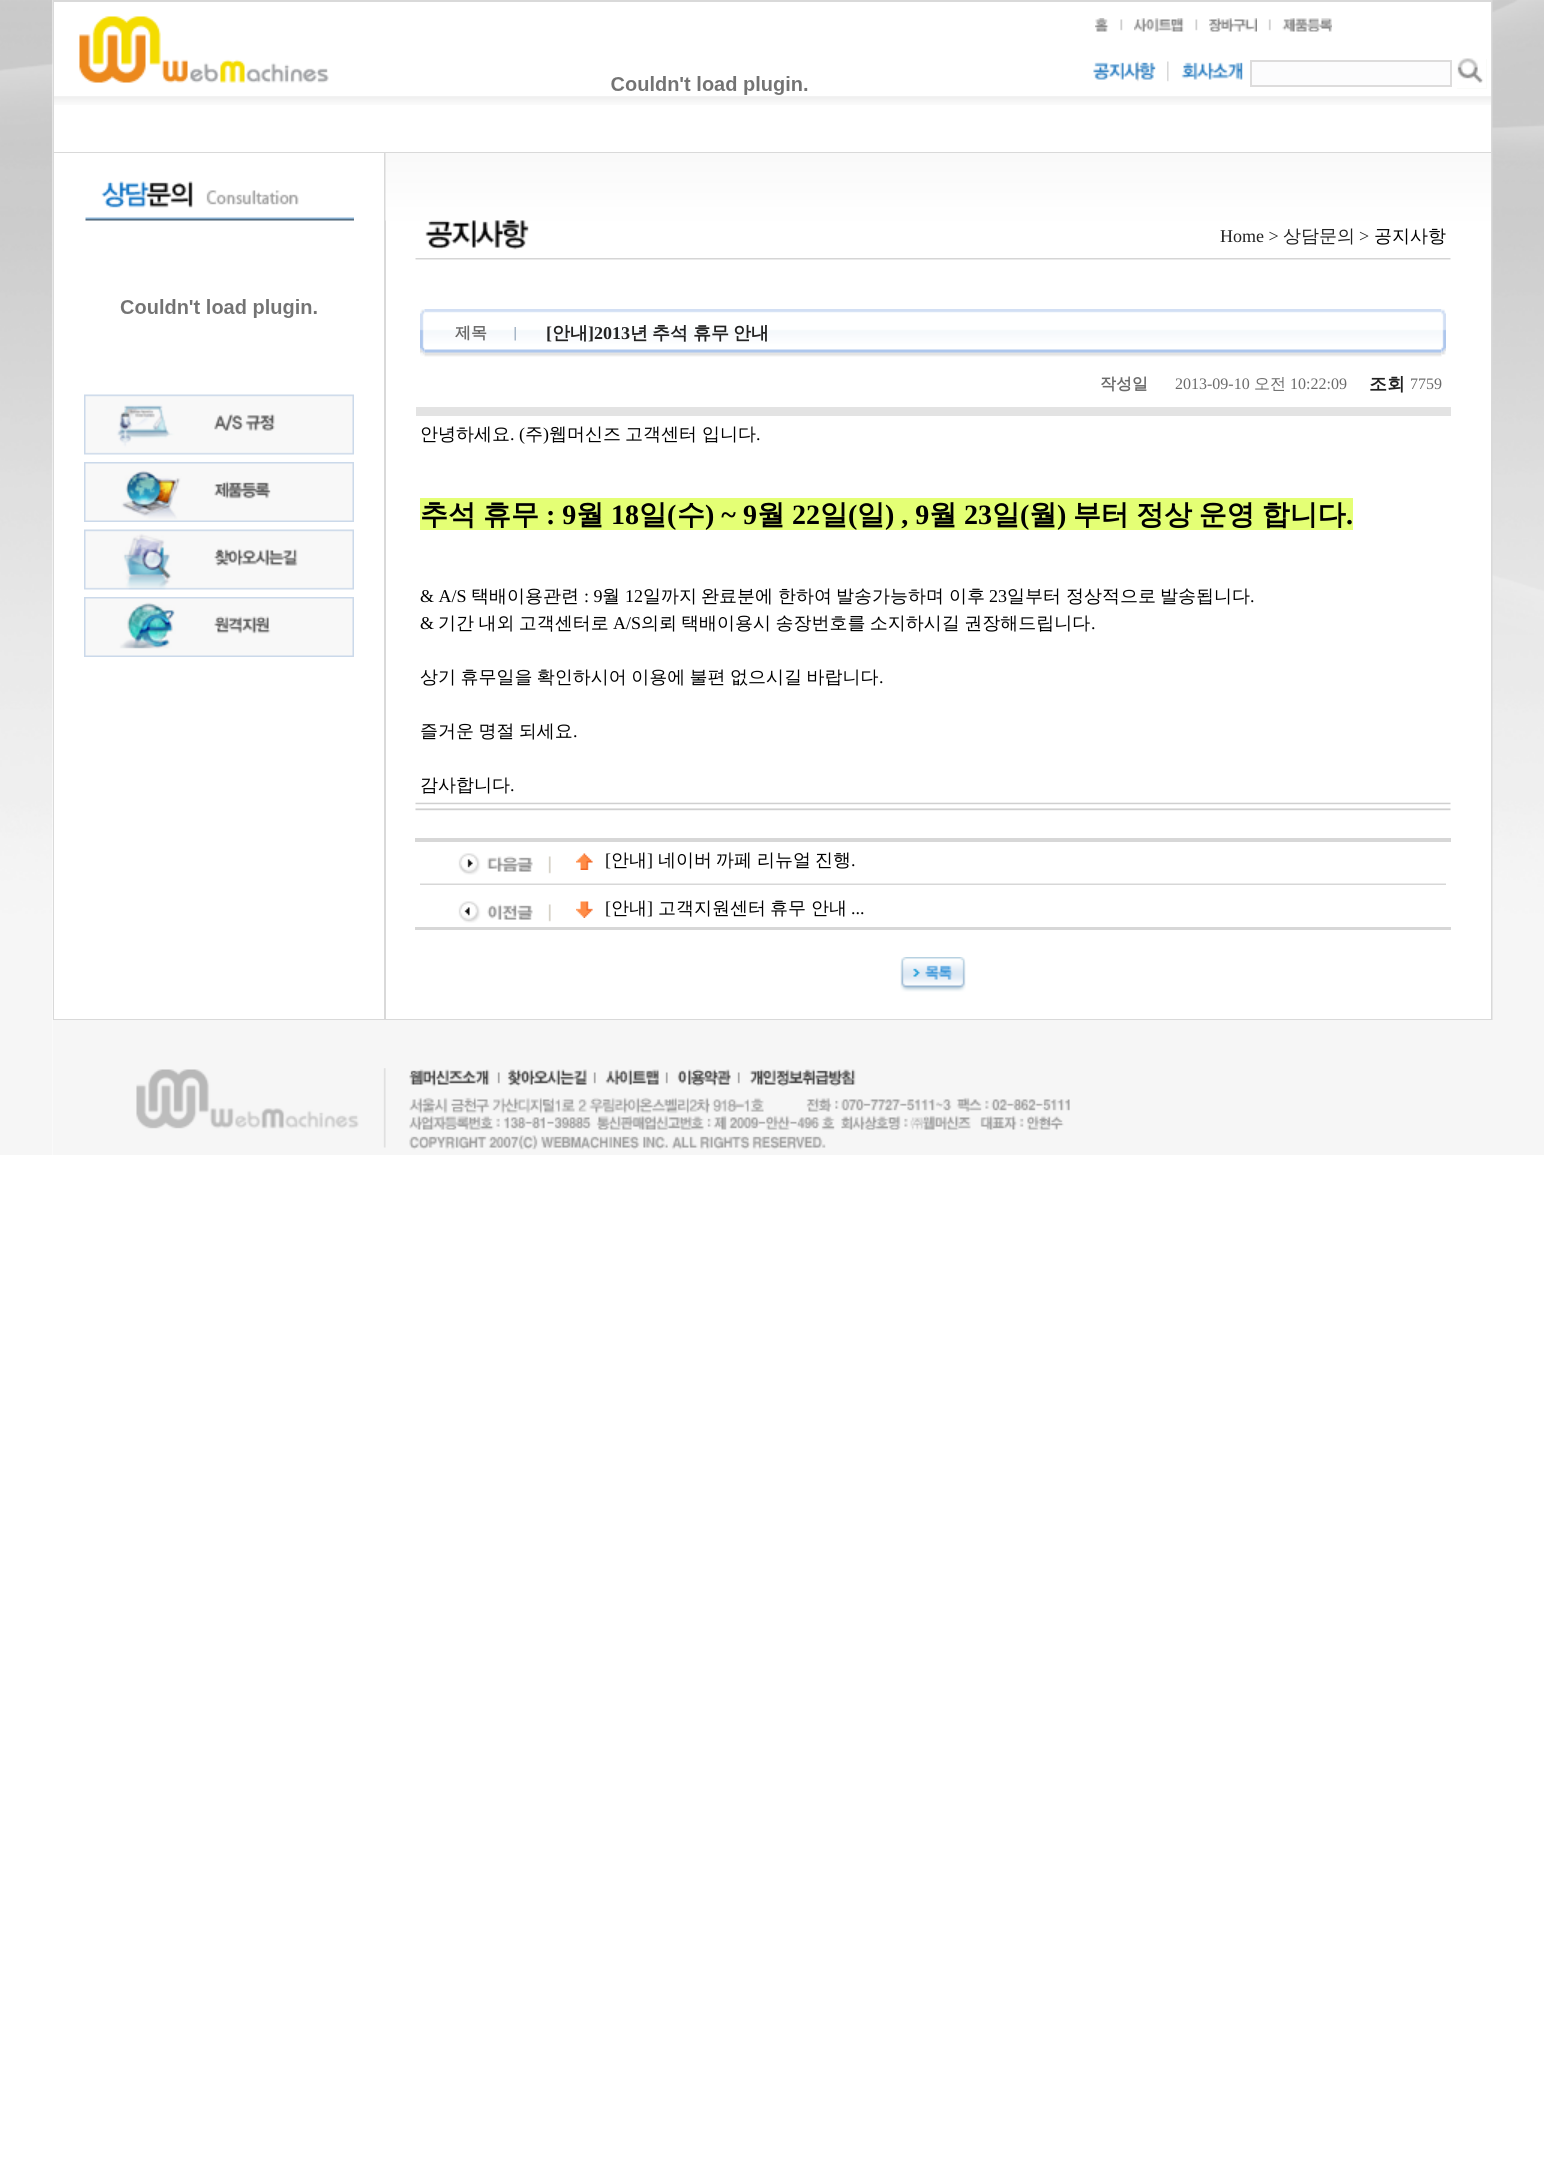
import math
import cairo

surface = cairo.ImageSurface(cairo.FORMAT_RGB24, 1544, 2160)
cr = cairo.Context(surface)
options = cairo.FontOptions()
options.set_hint_metrics(cairo.HINT_METRICS_OFF)
options.set_hint_style(cairo.HINT_STYLE_NONE)
cr.set_font_options(options)
cr.set_miter_limit(4)


def rgb(code):
    cr.set_source_rgb(*(v / 255 for v in bytes.fromhex(code[-6:])))


def tracked(x, y, s, letter, word):
    cr.move_to(x, y)
    for ch in s:
        cr.show_text(ch)
        cr.rel_move_to(letter + word * (ch == ' '), 0)


def image(path, x, y, w, h):
    cr.save()
    cr.set_source_surface(cairo.ImageSurface.create_from_png(path), x, y)
    cr.rectangle(x, y, w, h)
    cr.fill()
    cr.restore()


rgb("#ffffff")
cr.paint()
image("img/1.png", 0, 0, 53, 1155)
for x, y, w, h, color in [
    (53, 1020, 1440, 135, "#f6f6f6"),
    (53, 0, 1440, 1020, "#d9d9d9"),
    (54, 2, 1437, 150, "#ffffff"),
]:
    rgb(color)
    cr.rectangle(x, y, w, h)
    cr.fill()
image("img/2.png", 54, 96, 1437, 9)
image("img/3.png", 79, 16, 250, 67)
image("img/4.png", 611, 76, 197, 19)
image("img/5.png", 1095, 18, 14, 14)
image("img/6.png", 1108, 19, 15, 12)
image("img/7.png", 1134, 18, 50, 14)
image("img/8.png", 1183, 18, 15, 13)
image("img/9.png", 1209, 18, 48, 14)
image("img/10.png", 1268, 19, 3, 12)
image("img/11.png", 1282, 18, 50, 14)
image("img/12.png", 1093, 61, 63, 21)
image("img/13.png", 1167, 61, 76, 21)
rgb("#fcfcfd")
cr.rectangle(1251, 61, 200, 25)
cr.fill_preserve()
rgb("#dddcdc")
cr.stroke()
rgb("#fafbf9")
cr.rectangle(1457, 59, 30, 30)
cr.fill()
image("img/14.png", 1457, 58, 29, 30)
rgb("#ffffff")
cr.rectangle(54, 153, 1437, 866)
cr.fill()
image("img/15.png", 85, 181, 269, 40)
image("img/16.png", 120, 299, 197, 19)
image("img/17.png", 84, 394, 270, 61)
image("img/18.png", 84, 462, 270, 60)
image("img/19.png", 84, 529, 270, 61)
image("img/20.png", 84, 597, 270, 60)
rgb("#d9d9d9")
cr.rectangle(384, 153, 2, 866)
cr.fill()
image("img/21.png", 385, 153, 1106, 68)
image("img/22.png", 425, 220, 104, 30)
image("img/23.png", 415, 258, 1036, 2)
image("img/24.png", 420, 309, 5, 47)
image("img/25.png", 424, 309, 1018, 48)
image("img/26.png", 514, 327, 2, 14)
image("img/27.png", 1441, 309, 5, 46)
rgb("#e3e3e3")
cr.rectangle(416, 407, 1035, 9)
cr.fill()
rgb("#e4ff75")
cr.rectangle(420, 498, 933, 32)
cr.fill()
image("img/28.png", 415, 802, 1036, 9)
rgb("#d7d7d7")
cr.rectangle(415, 838, 1036, 4)
cr.fill()
image("img/29.png", 458, 853, 93, 22)
image("img/30.png", 576, 853, 17, 17)
image("img/31.png", 420, 883, 1026, 2)
image("img/32.png", 458, 901, 93, 22)
image("img/33.png", 576, 901, 17, 17)
cr.rectangle(415, 927, 1036, 3)
cr.fill()
image("img/34.png", 900, 957, 66, 35)
image("img/35.png", 136, 1068, 934, 82)
image("img/36.png", 1492, 0, 52, 1155)
cr.select_font_face("Liberation Serif")
cr.set_font_size(18)
rgb("#222222")
cr.move_to(1220, 242)
cr.show_text("Home >")
cr.select_font_face("WenQuanYi Zen Hei Medium")
cr.move_to(1283, 242)
cr.show_text("상담문의")
cr.select_font_face("Liberation Serif")
cr.move_to(1359, 242)
cr.show_text(">")
cr.select_font_face("WenQuanYi Zen Hei Medium")
rgb("#000000")
cr.move_to(1374, 242)
cr.show_text("공지사항")
cr.select_font_face("WenQuanYi Zen Hei", cairo.FONT_SLANT_NORMAL, cairo.FONT_WEIGHT_BOLD)
cr.set_font_size(16)
rgb("#6b6b6b")
cr.move_to(455, 338)
cr.show_text("제목")
cr.select_font_face("Liberation Serif", cairo.FONT_SLANT_NORMAL, cairo.FONT_WEIGHT_BOLD)
cr.set_font_size(18)
rgb("#222222")
cr.move_to(546, 339)
cr.show_text("[")
cr.select_font_face("WenQuanYi Zen Hei", cairo.FONT_SLANT_NORMAL, cairo.FONT_WEIGHT_BOLD)
cr.move_to(552, 339)
cr.show_text("안내")
cr.select_font_face("Liberation Serif", cairo.FONT_SLANT_NORMAL, cairo.FONT_WEIGHT_BOLD)
cr.move_to(588, 339)
cr.show_text("]2013")
cr.select_font_face("WenQuanYi Zen Hei", cairo.FONT_SLANT_NORMAL, cairo.FONT_WEIGHT_BOLD)
for x, y, s in [
    (630, 339, "년"),
    (652, 339, "추석"),
    (693, 339, "휴무"),
    (733, 339, "안내"),
]:
    cr.move_to(x, y)
    cr.show_text(s)
cr.set_font_size(16)
rgb("#6b6b6b")
cr.move_to(1100, 389)
cr.show_text("작성일")
cr.select_font_face("Liberation Serif")
cr.move_to(1175, 389)
cr.show_text("2013-09-10")
cr.select_font_face("WenQuanYi Zen Hei Medium")
cr.move_to(1254, 389)
cr.show_text("오전")
cr.select_font_face("Liberation Serif")
cr.move_to(1290, 389)
cr.show_text("10:22:09")
cr.select_font_face("WenQuanYi Zen Hei", cairo.FONT_SLANT_NORMAL, cairo.FONT_WEIGHT_BOLD)
cr.set_font_size(18)
rgb("#222222")
cr.move_to(1369, 390)
cr.show_text("조회")
cr.select_font_face("Liberation Serif")
cr.set_font_size(16)
rgb("#6b6b6b")
cr.move_to(1410, 389)
cr.show_text("7759")
cr.select_font_face("WenQuanYi Zen Hei Medium")
cr.set_font_size(18)
rgb("#000000")
cr.move_to(420, 440)
cr.show_text("안녕하세요")
cr.select_font_face("Liberation Serif")
cr.move_to(510, 440)
cr.show_text(". (")
cr.select_font_face("WenQuanYi Zen Hei Medium")
cr.move_to(525, 440)
cr.show_text("주")
cr.select_font_face("Liberation Serif")
cr.move_to(543, 440)
cr.show_text(")")
cr.select_font_face("WenQuanYi Zen Hei Medium")
for x, y, s in [
    (549, 440, "웹머신즈"),
    (625, 440, "고객센터"),
    (702, 440, "입니다"),
]:
    cr.move_to(x, y)
    cr.show_text(s)
cr.select_font_face("Liberation Serif")
cr.move_to(756, 440)
cr.show_text(".")
cr.select_font_face("WenQuanYi Zen Hei", cairo.FONT_SLANT_NORMAL, cairo.FONT_WEIGHT_BOLD)
cr.set_font_size(28)
cr.move_to(420, 524)
cr.show_text("추석")
cr.move_to(483, 524)
cr.show_text("휴무")
cr.select_font_face("Liberation Serif", cairo.FONT_SLANT_NORMAL, cairo.FONT_WEIGHT_BOLD)
cr.move_to(546, 524)
cr.show_text(": 9")
cr.select_font_face("WenQuanYi Zen Hei", cairo.FONT_SLANT_NORMAL, cairo.FONT_WEIGHT_BOLD)
cr.move_to(576, 524)
cr.show_text("월")
cr.select_font_face("Liberation Serif", cairo.FONT_SLANT_NORMAL, cairo.FONT_WEIGHT_BOLD)
cr.move_to(611, 524)
cr.show_text("18")
cr.select_font_face("WenQuanYi Zen Hei", cairo.FONT_SLANT_NORMAL, cairo.FONT_WEIGHT_BOLD)
cr.move_to(639, 524)
cr.show_text("일")
cr.select_font_face("Liberation Serif", cairo.FONT_SLANT_NORMAL, cairo.FONT_WEIGHT_BOLD)
cr.move_to(667, 524)
cr.show_text("(")
cr.select_font_face("WenQuanYi Zen Hei", cairo.FONT_SLANT_NORMAL, cairo.FONT_WEIGHT_BOLD)
cr.move_to(677, 524)
cr.show_text("수")
cr.select_font_face("Liberation Serif", cairo.FONT_SLANT_NORMAL, cairo.FONT_WEIGHT_BOLD)
cr.move_to(705, 524)
cr.show_text(") ~ 9")
cr.select_font_face("WenQuanYi Zen Hei", cairo.FONT_SLANT_NORMAL, cairo.FONT_WEIGHT_BOLD)
cr.move_to(757, 524)
cr.show_text("월")
cr.select_font_face("Liberation Serif", cairo.FONT_SLANT_NORMAL, cairo.FONT_WEIGHT_BOLD)
cr.move_to(792, 524)
cr.show_text("22")
cr.select_font_face("WenQuanYi Zen Hei", cairo.FONT_SLANT_NORMAL, cairo.FONT_WEIGHT_BOLD)
cr.move_to(820, 524)
cr.show_text("일")
cr.select_font_face("Liberation Serif", cairo.FONT_SLANT_NORMAL, cairo.FONT_WEIGHT_BOLD)
cr.move_to(848, 524)
cr.show_text("(")
cr.select_font_face("WenQuanYi Zen Hei", cairo.FONT_SLANT_NORMAL, cairo.FONT_WEIGHT_BOLD)
cr.move_to(857, 524)
cr.show_text("일")
cr.select_font_face("Liberation Serif", cairo.FONT_SLANT_NORMAL, cairo.FONT_WEIGHT_BOLD)
cr.move_to(885, 524)
cr.show_text(") , 9")
cr.select_font_face("WenQuanYi Zen Hei", cairo.FONT_SLANT_NORMAL, cairo.FONT_WEIGHT_BOLD)
cr.move_to(929, 524)
cr.show_text("월")
cr.select_font_face("Liberation Serif", cairo.FONT_SLANT_NORMAL, cairo.FONT_WEIGHT_BOLD)
cr.move_to(964, 524)
cr.show_text("23")
cr.select_font_face("WenQuanYi Zen Hei", cairo.FONT_SLANT_NORMAL, cairo.FONT_WEIGHT_BOLD)
cr.move_to(992, 524)
cr.show_text("일")
cr.select_font_face("Liberation Serif", cairo.FONT_SLANT_NORMAL, cairo.FONT_WEIGHT_BOLD)
cr.move_to(1020, 524)
cr.show_text("(")
cr.select_font_face("WenQuanYi Zen Hei", cairo.FONT_SLANT_NORMAL, cairo.FONT_WEIGHT_BOLD)
cr.move_to(1029, 524)
cr.show_text("월")
cr.select_font_face("Liberation Serif", cairo.FONT_SLANT_NORMAL, cairo.FONT_WEIGHT_BOLD)
cr.move_to(1057, 524)
cr.show_text(")")
cr.select_font_face("WenQuanYi Zen Hei", cairo.FONT_SLANT_NORMAL, cairo.FONT_WEIGHT_BOLD)
tracked(1073, 524, "부터 정상 운영 합니다", 0, -1.5)
cr.select_font_face("Liberation Serif", cairo.FONT_SLANT_NORMAL, cairo.FONT_WEIGHT_BOLD)
cr.move_to(1346, 524)
cr.show_text(".")
cr.select_font_face("Liberation Serif")
cr.set_font_size(18)
cr.move_to(420, 602)
cr.show_text("& A/S")
cr.select_font_face("WenQuanYi Zen Hei Medium")
cr.move_to(471, 602)
cr.show_text("택배이용관련")
cr.select_font_face("Liberation Serif")
cr.move_to(584, 602)
cr.show_text(": 9")
cr.select_font_face("WenQuanYi Zen Hei Medium")
cr.move_to(602, 602)
cr.show_text("월")
cr.select_font_face("Liberation Serif")
cr.move_to(625, 602)
cr.show_text("12")
cr.select_font_face("WenQuanYi Zen Hei Medium")
for x, y, s in [
    (643, 602, "일까지"),
    (701, 602, "완료분에"),
    (778, 602, "한하여"),
    (836, 602, "발송가능하며"),
    (949, 602, "이후"),
]:
    cr.move_to(x, y)
    cr.show_text(s)
cr.select_font_face("Liberation Serif")
cr.move_to(989, 602)
cr.show_text("23")
cr.select_font_face("WenQuanYi Zen Hei Medium")
for x, y, s in [
    (1007, 602, "일부터"),
    (1066, 602, "정상적으로"),
    (1160, 602, "발송됩니다"),
]:
    cr.move_to(x, y)
    cr.show_text(s)
cr.select_font_face("Liberation Serif")
cr.move_to(1250, 602)
cr.show_text(".")
cr.move_to(420, 629)
cr.show_text("&")
cr.select_font_face("WenQuanYi Zen Hei Medium")
tracked(438, 629, "기간 내외 고객센터로", 0, -1)
cr.select_font_face("Liberation Serif")
cr.move_to(613, 629)
cr.show_text("A/S")
cr.select_font_face("WenQuanYi Zen Hei Medium")
cr.move_to(641, 629)
cr.show_text("의뢰")
tracked(681, 629, "택배이용시 송장번호를 소지하시길 권장해드립니다", 0, -1)
cr.select_font_face("Liberation Serif")
cr.move_to(1091, 629)
cr.show_text(".")
cr.select_font_face("WenQuanYi Zen Hei Medium")
tracked(420, 683, "상기 휴무일을 확인하시어 이용에 불편 없으시길 바랍니다", 0, -1)
cr.select_font_face("Liberation Serif")
cr.move_to(879, 683)
cr.show_text(".")
cr.select_font_face("WenQuanYi Zen Hei Medium")
tracked(420, 737, "즐거운 명절 되세요", 0, -1)
cr.select_font_face("Liberation Serif")
cr.move_to(573, 737)
cr.show_text(".")
cr.select_font_face("WenQuanYi Zen Hei Medium")
cr.move_to(420, 791)
cr.show_text("감사합니다")
cr.select_font_face("Liberation Serif")
cr.move_to(510, 791)
cr.show_text(".")
cr.move_to(605, 866)
cr.show_text("[")
cr.select_font_face("WenQuanYi Zen Hei Medium")
cr.move_to(611, 866)
cr.show_text("안내")
cr.select_font_face("Liberation Serif")
cr.move_to(647, 866)
cr.show_text("]")
cr.select_font_face("WenQuanYi Zen Hei Medium")
for x, y, s in [
    (658, 866, "네이버"),
    (716, 866, "까페"),
    (757, 866, "리뉴얼"),
    (815, 866, "진행"),
]:
    cr.move_to(x, y)
    cr.show_text(s)
cr.select_font_face("Liberation Serif")
cr.move_to(851, 866)
cr.show_text(".")
cr.move_to(605, 914)
cr.show_text("[")
cr.select_font_face("WenQuanYi Zen Hei Medium")
cr.move_to(611, 914)
cr.show_text("안내")
cr.select_font_face("Liberation Serif")
cr.move_to(647, 914)
cr.show_text("]")
cr.select_font_face("WenQuanYi Zen Hei Medium")
for x, y, s in [
    (658, 914, "고객지원센터"),
    (770, 914, "휴무"),
    (811, 914, "안내"),
]:
    cr.move_to(x, y)
    cr.show_text(s)
cr.select_font_face("Liberation Serif")
cr.move_to(851, 914)
cr.show_text("...")
surface.write_to_png("page.png")
